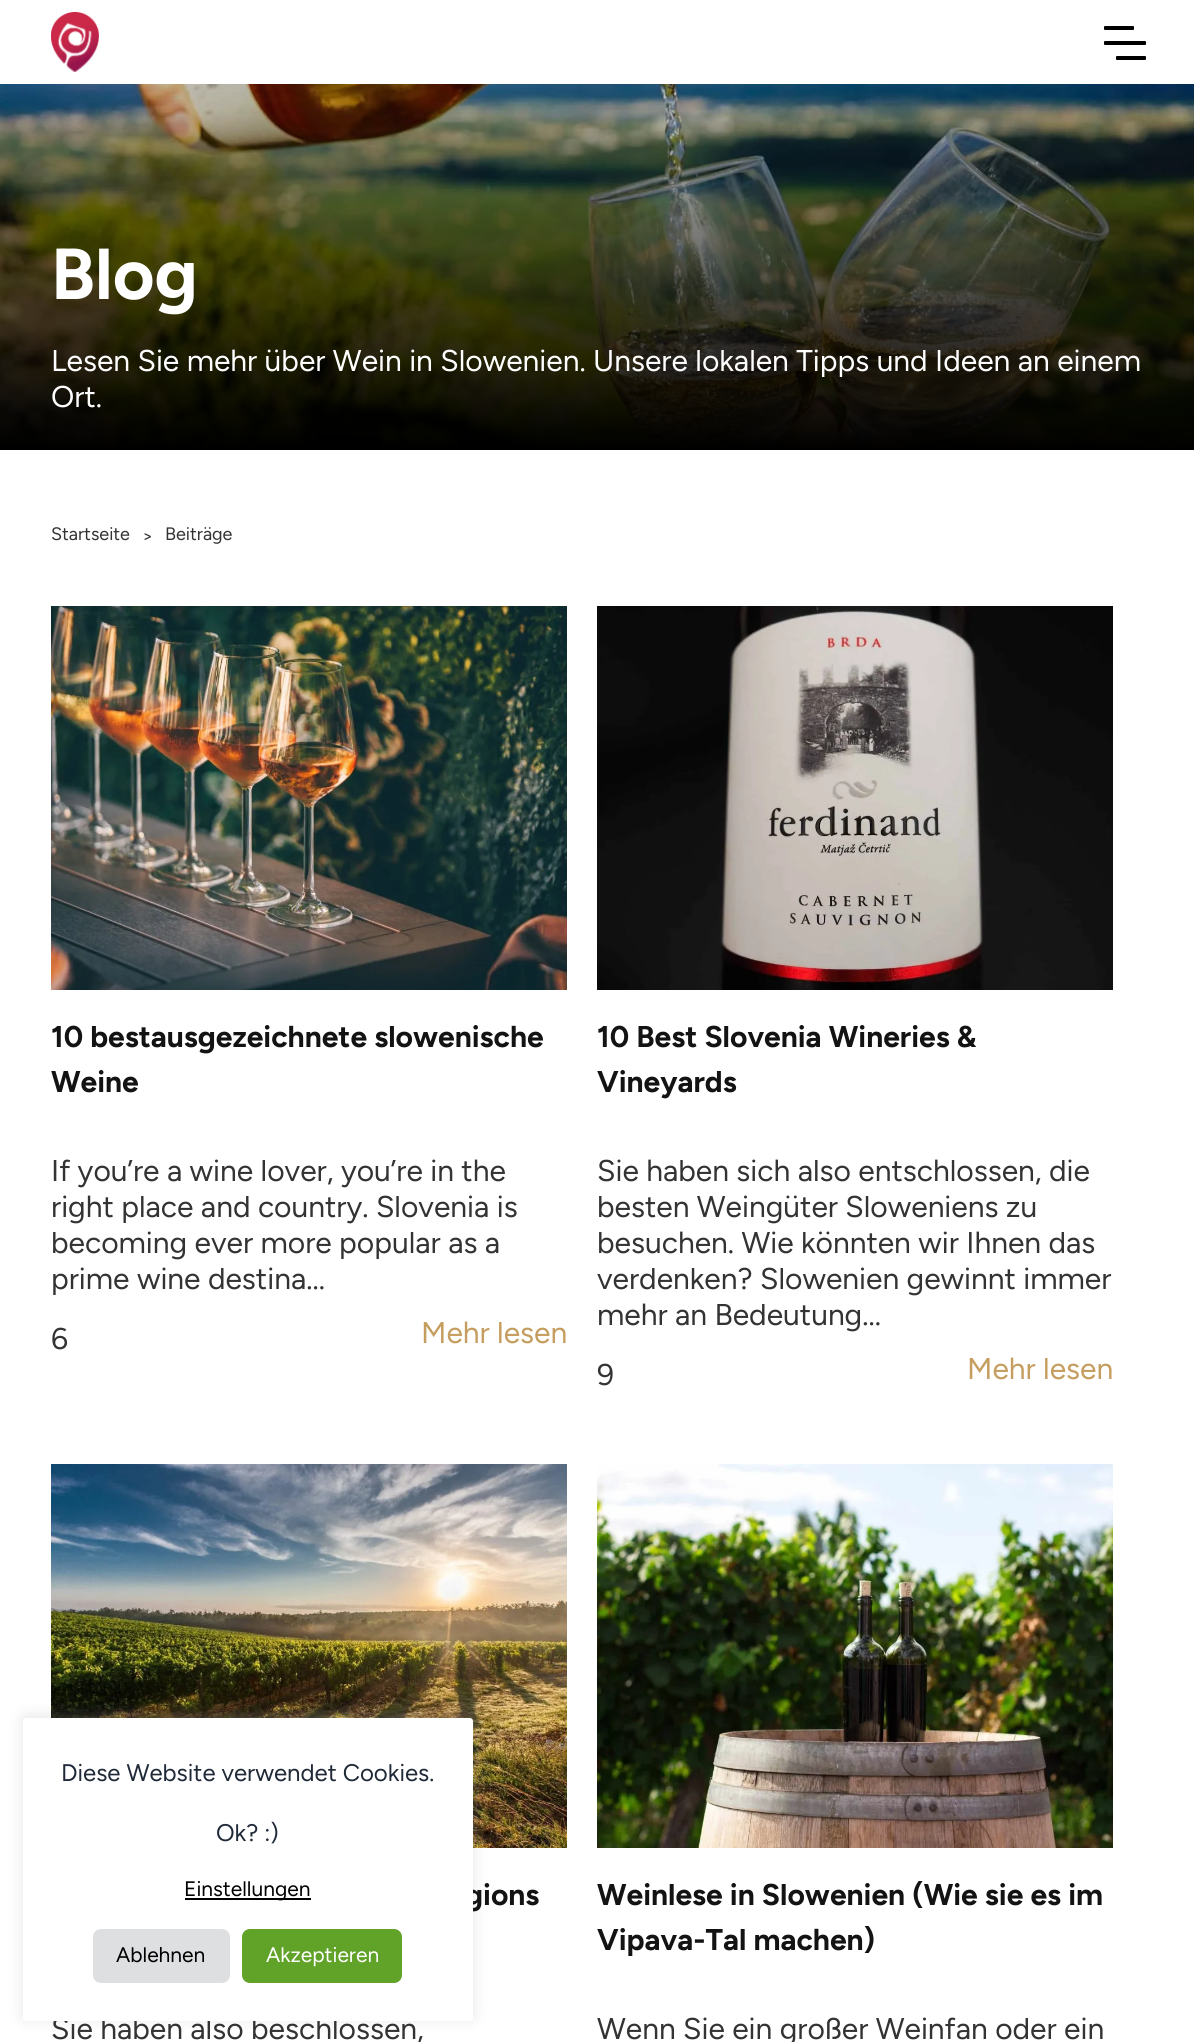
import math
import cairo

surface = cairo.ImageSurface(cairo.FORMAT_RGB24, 1194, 2042)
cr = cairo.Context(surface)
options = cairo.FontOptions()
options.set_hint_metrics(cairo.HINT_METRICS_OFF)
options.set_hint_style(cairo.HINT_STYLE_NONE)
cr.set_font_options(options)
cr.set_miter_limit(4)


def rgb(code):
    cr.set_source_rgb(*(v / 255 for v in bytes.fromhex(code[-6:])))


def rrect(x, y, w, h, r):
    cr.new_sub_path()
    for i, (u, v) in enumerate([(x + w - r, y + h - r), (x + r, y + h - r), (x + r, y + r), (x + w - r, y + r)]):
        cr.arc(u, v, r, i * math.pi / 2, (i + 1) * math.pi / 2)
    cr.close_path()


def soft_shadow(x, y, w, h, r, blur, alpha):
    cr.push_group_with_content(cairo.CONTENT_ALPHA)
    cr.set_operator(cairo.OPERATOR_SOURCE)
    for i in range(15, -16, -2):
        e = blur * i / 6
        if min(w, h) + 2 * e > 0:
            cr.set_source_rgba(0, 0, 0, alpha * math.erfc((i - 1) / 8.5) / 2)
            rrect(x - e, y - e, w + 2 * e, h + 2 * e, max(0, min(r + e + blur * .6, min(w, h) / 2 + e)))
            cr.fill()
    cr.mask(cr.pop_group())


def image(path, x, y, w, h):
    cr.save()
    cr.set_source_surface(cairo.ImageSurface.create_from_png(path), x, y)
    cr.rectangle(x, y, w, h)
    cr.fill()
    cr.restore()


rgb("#ffffff")
cr.paint()
image("img/2.png", 0, 84, 1194, 366)
rgb("#000000")
soft_shadow(0, 12, 1194, 84, 0, 12, 0.08)
rgb("#ffffff")
cr.rectangle(0, 0, 1194, 84)
cr.fill()
image("img/1.png", 51, 12, 48, 60)
rgb("#000000")
rrect(1104, 26, 30, 4, 1)
cr.fill()
rrect(1116, 56, 30, 4, 1)
cr.fill()
rrect(1104, 41, 42, 4, 1)
cr.fill()
image("img/3.png", 51, 606, 516, 384)
image("img/4.png", 597, 606, 516, 384)
image("img/5.png", 51, 1464, 516, 384)
image("img/6.png", 597, 1464, 516, 384)
rgb("#acabab")
soft_shadow(23, 1716, 450, 303, 3, 7.5, 0.3)
cr.select_font_face("Figtree", cairo.FONT_SLANT_NORMAL, cairo.FONT_WEIGHT_BOLD)
cr.set_font_size(72)
rgb("#ffffff")
cr.move_to(51, 299)
cr.show_text("Blog")
cr.select_font_face("Figtree")
cr.set_font_size(30)
cr.move_to(51, 371)
cr.show_text("Lesen Sie mehr über Wein in Slowenien. Unsere lokalen Tipps und Ideen an einem")
cr.move_to(51, 407)
cr.show_text("Ort.")
cr.set_font_size(18)
rgb("#333333")
for x, y, s in [
    (51, 540, "Startseite"),
    (142, 542, ">"),
    (165, 540, "Beiträge"),
]:
    cr.move_to(x, y)
    cr.show_text(s)
cr.select_font_face("Figtree", cairo.FONT_SLANT_NORMAL, cairo.FONT_WEIGHT_BOLD)
cr.set_font_size(30)
rgb("#131313")
cr.move_to(51, 1047)
cr.show_text("10 bestausgezeichnete slowenische")
cr.move_to(51, 1092)
cr.show_text("Weine")
cr.select_font_face("Figtree")
rgb("#333333")
for x, y, s in [
    (51, 1181, "If you’re a wine lover, you’re in the"),
    (51, 1217, "right place and country. Slovenia is"),
    (51, 1253, "becoming ever more popular as a"),
    (51, 1289, "prime wine destina..."),
    (51, 1349, "6"),
]:
    cr.move_to(x, y)
    cr.show_text(s)
rgb("#c59d5f")
cr.move_to(421, 1343)
cr.show_text("Mehr lesen")
cr.select_font_face("Figtree", cairo.FONT_SLANT_NORMAL, cairo.FONT_WEIGHT_BOLD)
rgb("#131313")
cr.move_to(597, 1047)
cr.show_text("10 Best Slovenia Wineries &")
cr.move_to(597, 1092)
cr.show_text("Vineyards")
cr.select_font_face("Figtree")
rgb("#333333")
for x, y, s in [
    (597, 1181, "Sie haben sich also entschlossen, die"),
    (597, 1217, "besten Weingüter Sloweniens zu"),
    (597, 1253, "besuchen. Wie könnten wir Ihnen das"),
    (597, 1289, "verdenken? Slowenien gewinnt immer"),
    (597, 1325, "mehr an Bedeutung..."),
    (597, 1385, "9"),
]:
    cr.move_to(x, y)
    cr.show_text(s)
rgb("#c59d5f")
cr.move_to(967, 1379)
cr.show_text("Mehr lesen")
cr.select_font_face("Figtree", cairo.FONT_SLANT_NORMAL, cairo.FONT_WEIGHT_BOLD)
rgb("#131313")
cr.move_to(465, 1905)
cr.show_text("gions")
cr.select_font_face("Figtree")
rgb("#333333")
cr.move_to(51, 2039)
cr.show_text("Sie haben also beschlossen,")
cr.select_font_face("Figtree", cairo.FONT_SLANT_NORMAL, cairo.FONT_WEIGHT_BOLD)
rgb("#131313")
cr.move_to(597, 1905)
cr.show_text("Weinlese in Slowenien (Wie sie es im")
cr.move_to(597, 1950)
cr.show_text("Vipava-Tal machen)")
cr.select_font_face("Figtree")
rgb("#333333")
cr.move_to(597, 2039)
cr.show_text("Wenn Sie ein großer Weinfan oder ein")
rgb("#ffffff")
rrect(23, 1718, 450, 303, 3)
cr.fill()
cr.set_font_size(24)
rgb("#1f2937")
cr.move_to(61, 1781)
cr.show_text("Diese Website verwendet Cookies.")
cr.move_to(216, 1841)
cr.show_text("Ok? :)")
rgb("#000000")
cr.rectangle(185, 1898, 126, 2)
cr.fill()
cr.set_font_size(21)
cr.move_to(184, 1896)
cr.show_text("Einstellungen")
rgb("#dedfe0")
rrect(93, 1929, 137, 54, 8)
cr.fill()
rgb("#000000")
cr.move_to(116, 1962)
cr.show_text("Ablehnen")
rgb("#61a229")
rrect(242, 1929, 160, 54, 8)
cr.fill()
rgb("#ffffff")
cr.move_to(266, 1962)
cr.show_text("Akzeptieren")
surface.write_to_png("page.png")
